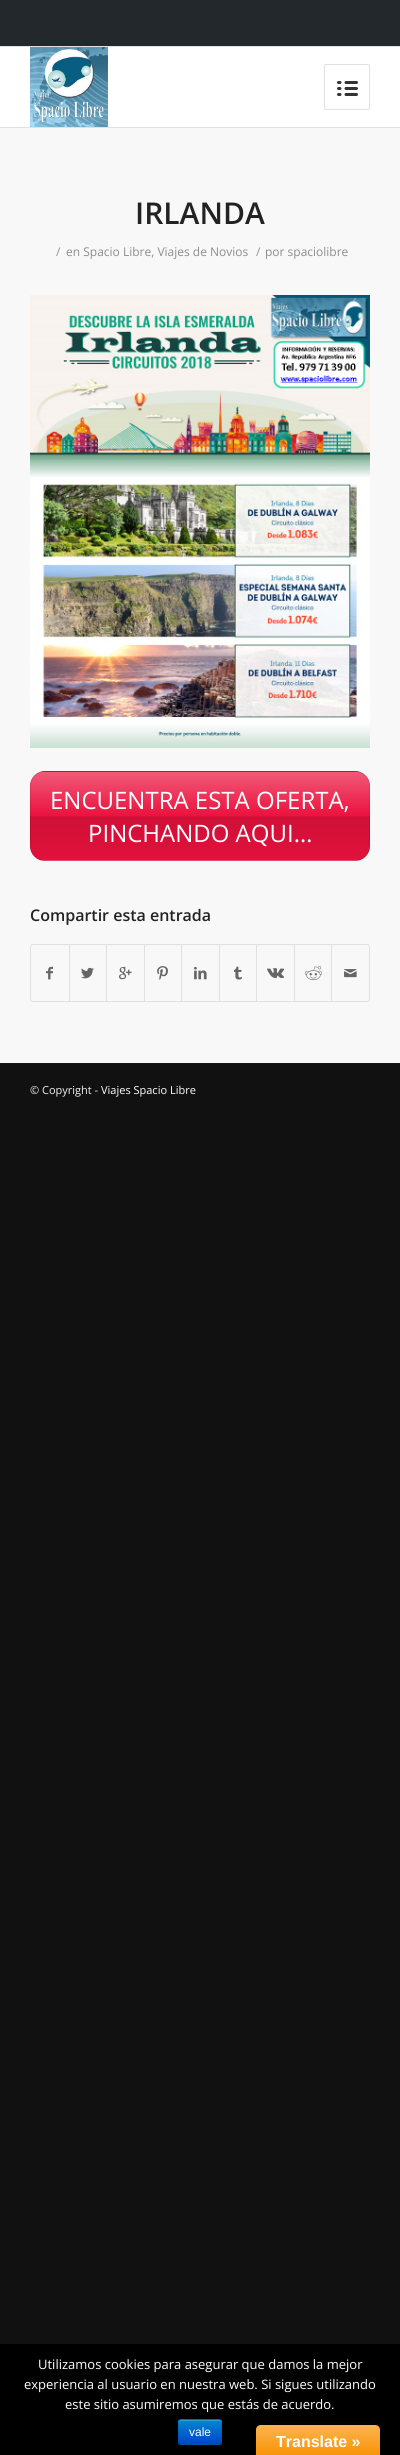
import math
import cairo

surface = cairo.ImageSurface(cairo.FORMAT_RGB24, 400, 2455)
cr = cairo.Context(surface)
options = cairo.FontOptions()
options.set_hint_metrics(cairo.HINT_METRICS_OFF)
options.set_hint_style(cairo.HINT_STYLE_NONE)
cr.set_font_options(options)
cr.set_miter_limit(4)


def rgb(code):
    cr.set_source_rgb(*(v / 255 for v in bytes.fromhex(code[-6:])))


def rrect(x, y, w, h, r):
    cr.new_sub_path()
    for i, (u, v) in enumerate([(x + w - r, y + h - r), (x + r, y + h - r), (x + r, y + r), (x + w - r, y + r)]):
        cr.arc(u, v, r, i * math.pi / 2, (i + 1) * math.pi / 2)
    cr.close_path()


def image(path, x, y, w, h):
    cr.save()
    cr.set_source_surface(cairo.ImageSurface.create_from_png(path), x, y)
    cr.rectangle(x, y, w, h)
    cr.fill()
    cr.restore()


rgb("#111111")
cr.paint()
for x, y, w, h, color in [
    (0, 0, 400, 46, "#23282d"),
    (0, 46, 400, 1, "#e1e1e1"),
    (0, 127, 400, 1, "#e1e1e1"),
    (0, 47, 400, 80, "#ffffff"),
]:
    rgb(color)
    cr.rectangle(x, y, w, h)
    cr.fill()
image("img/1.png", 30, 47, 78, 80)
rrect(324.5, 64.5, 45, 45, 1.5)
rgb("#e1e1e1")
cr.set_line_width(1)
cr.stroke()
image("img/2.png", 337, 81, 21, 15)
rgb("#f8f8f8")
cr.rectangle(0, 128, 400, 935)
cr.fill()
image("img/3.png", 30, 295, 340, 453)
rgb("#eb123e")
rrect(30, 771, 340, 90, 15)
cr.fill()
gradient = cairo.LinearGradient(200, 684, 200, 772)
gradient.add_color_stop_rgba(0, 1, 1, 1, 0.3)
gradient.add_color_stop_rgba(0.5, 1, 1, 1, 0)
gradient.add_color_stop_rgba(0.5, 0, 0, 0, 0)
gradient.add_color_stop_rgba(0.51, 0, 0, 0, 0.12)
gradient.add_color_stop_rgba(1, 0, 0, 0, 0.04)
cr.set_source(gradient)
cr.rectangle(41, 771, 318, 1)
cr.fill()
cr.save()
rrect(30, 771, 340, 90, 15)
cr.clip()
gradient = cairo.LinearGradient(200, 772, 200, 860)
gradient.add_color_stop_rgba(0, 1, 1, 1, 0.3)
gradient.add_color_stop_rgba(0.5, 1, 1, 1, 0)
gradient.add_color_stop_rgba(0.5, 0, 0, 0, 0)
gradient.add_color_stop_rgba(0.51, 0, 0, 0, 0.12)
gradient.add_color_stop_rgba(1, 0, 0, 0, 0.04)
cr.set_source(gradient)
cr.rectangle(30, 772, 340, 88)
cr.fill()
gradient = cairo.LinearGradient(200, 860, 200, 948)
gradient.add_color_stop_rgba(0, 1, 1, 1, 0.3)
gradient.add_color_stop_rgba(0.5, 1, 1, 1, 0)
gradient.add_color_stop_rgba(0.5, 0, 0, 0, 0)
gradient.add_color_stop_rgba(0.51, 0, 0, 0, 0.12)
gradient.add_color_stop_rgba(1, 0, 0, 0, 0.04)
cr.set_source(gradient)
cr.rectangle(40, 860, 320, 1)
cr.fill()
cr.restore()
rrect(30.5, 771.5, 339, 89, 14.5)
cr.set_source_rgba(0, 0, 0, 0.1)
cr.stroke()
rrect(30.5, 944.5, 339, 57, 2.5)
rgb("#e1e1e1")
cr.stroke()
image("img/4.png", 46, 966, 7, 14)
cr.rectangle(69, 945, 1, 56)
cr.fill()
image("img/5.png", 81, 967, 13, 12)
cr.rectangle(106, 945, 1, 56)
cr.fill()
image("img/6.png", 119, 966, 13, 14)
cr.rectangle(144, 945, 1, 56)
cr.fill()
image("img/7.png", 157, 966, 11, 14)
cr.rectangle(181, 945, 1, 56)
cr.fill()
image("img/8.png", 194, 966, 13, 14)
cr.rectangle(219, 945, 1, 56)
cr.fill()
image("img/9.png", 234, 966, 8, 14)
cr.rectangle(256, 945, 1, 56)
cr.fill()
image("img/10.png", 267, 968, 17, 10)
cr.rectangle(294, 945, 1, 56)
cr.fill()
image("img/11.png", 305, 966, 17, 15)
cr.rectangle(331, 945, 1, 56)
cr.fill()
image("img/12.png", 344, 969, 13, 9)
rgb("#161616")
cr.rectangle(0, 1063, 400, 1)
cr.fill()
rgb("#000000")
cr.rectangle(0, 2344, 400, 111)
cr.fill()
rgb("#006dcc")
rrect(178, 2419, 44, 26, 3)
cr.fill()
cr.save()
rrect(178, 2419, 44, 26, 3)
cr.clip()
gradient = cairo.LinearGradient(200, 2420, 200, 2444)
gradient.add_color_stop_rgba(0, 0, 0.533, 0.8, 1)
gradient.add_color_stop_rgba(1, 0, 0.267, 0.8, 1)
cr.set_source(gradient)
cr.rectangle(178, 2420, 44, 24)
cr.fill()
cr.restore()
cr.set_source_rgba(1, 1, 1, 0.2)
cr.new_path()
cr.move_to(181, 2421)
cr.line_to(219, 2421)
cr.curve_to(220, 2421, 221, 2422, 221, 2423)
cr.curve_to(221, 2418, 216, 2420, 213, 2420)
cr.line_to(187, 2420)
cr.curve_to(184, 2420, 179, 2418, 179, 2423)
cr.curve_to(179, 2422, 180, 2421, 181, 2421)
cr.close_path()
cr.fill()
cr.new_path()
cr.move_to(221, 2444)
cr.curve_to(219.5, 2445, 180.5, 2445, 179, 2444)
cr.set_source_rgba(0, 0, 0, 0.25)
cr.stroke()
cr.new_path()
cr.move_to(179, 2444)
cr.curve_to(177.5, 2442, 178.5, 2434.5, 178.5, 2432)
cr.curve_to(178.5, 2419.5, 175.5, 2419.5, 187.5, 2419.5)
cr.line_to(212.5, 2419.5)
cr.curve_to(224.5, 2419.5, 221.5, 2419.5, 221.5, 2432)
cr.curve_to(221.5, 2434.5, 222.5, 2442, 221, 2444)
cr.set_source_rgba(0, 0, 0, 0.1)
cr.stroke()
gradient = cairo.LinearGradient(318, 2425, 318, 2455)
gradient.add_color_stop_rgba(0, 0.984, 0.706, 0.314, 1)
gradient.add_color_stop_rgba(1, 0.973, 0.58, 0.024, 1)
cr.set_source(gradient)
cr.new_path()
cr.move_to(261, 2425)
cr.line_to(375, 2425)
cr.curve_to(378, 2425, 380, 2427, 380, 2430)
cr.line_to(380, 2455)
cr.line_to(256, 2455)
cr.line_to(256, 2430)
cr.curve_to(256, 2427, 258, 2425, 261, 2425)
cr.close_path()
cr.fill()
cr.select_font_face("Open Sans SemiBold")
cr.set_font_size(30)
rgb("#222222")
cr.move_to(135, 224)
cr.show_text("IRLANDA")
cr.select_font_face("Open Sans")
cr.set_font_size(12)
rgb("#8d8d8d")
for x, y, s in [
    (56, 256, "/"),
    (66, 256, "en Spacio Libre, Viajes de Novios"),
    (256, 256, "/"),
    (265, 256, "por spaciolibre"),
]:
    cr.move_to(x, y)
    cr.show_text(s)
cr.set_font_size(24)
rgb("#ffffff")
cr.move_to(50, 809)
cr.show_text("ENCUENTRA ESTA OFERTA,")
cr.move_to(88, 842)
cr.show_text("PINCHANDO AQUI…")
cr.select_font_face("Open Sans SemiBold")
cr.set_font_size(16)
rgb("#222222")
cr.move_to(30, 921)
cr.show_text("Compartir esta entrada")
cr.select_font_face("Open Sans")
cr.set_font_size(11)
rgb("#eeeeee")
cr.move_to(30, 1094)
cr.show_text("© Copyright -")
rgb("#ffffff")
cr.move_to(101, 1094)
cr.show_text("Viajes Spacio Libre")
cr.set_font_size(13)
for x, y, s in [
    (38, 2369, "Utilizamos cookies para asegurar que damos la mejor"),
    (24, 2389, "experiencia al usuario en nuestra web. Si sigues utilizando"),
    (65, 2409, "este sitio asumiremos que estás de acuerdo."),
]:
    cr.move_to(x, y)
    cr.show_text(s)
cr.select_font_face("Liberation Sans")
cr.set_font_size(12)
cr.move_to(189, 2436)
cr.show_text("vale")
cr.select_font_face("Liberation Sans", cairo.FONT_SLANT_NORMAL, cairo.FONT_WEIGHT_BOLD)
cr.set_font_size(16)
cr.move_to(276, 2447)
cr.show_text("Translate »")
surface.write_to_png("page.png")
